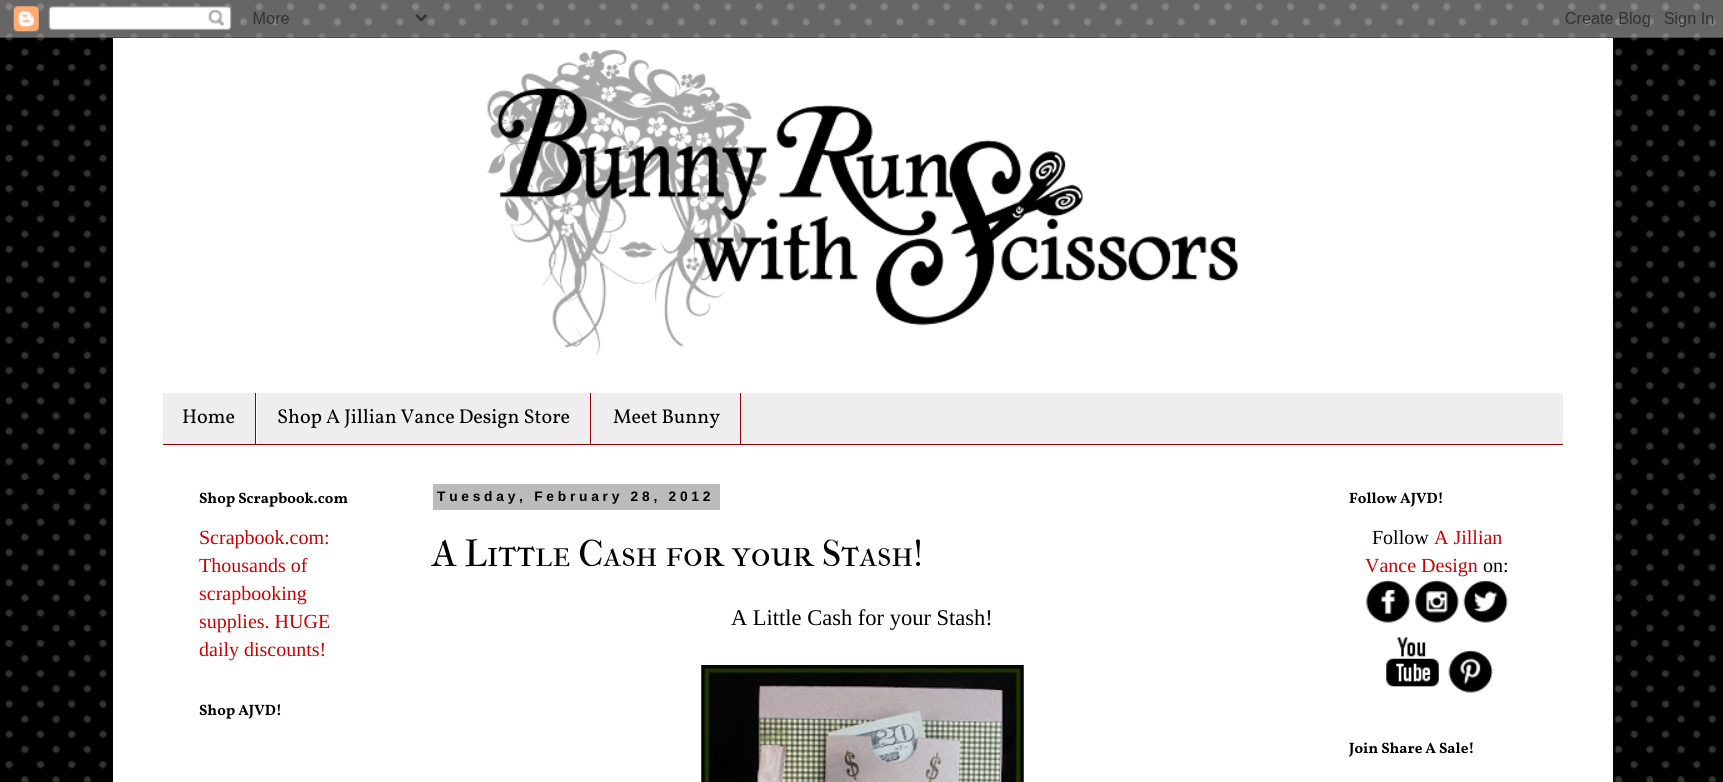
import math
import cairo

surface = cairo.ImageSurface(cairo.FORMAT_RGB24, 1723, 782)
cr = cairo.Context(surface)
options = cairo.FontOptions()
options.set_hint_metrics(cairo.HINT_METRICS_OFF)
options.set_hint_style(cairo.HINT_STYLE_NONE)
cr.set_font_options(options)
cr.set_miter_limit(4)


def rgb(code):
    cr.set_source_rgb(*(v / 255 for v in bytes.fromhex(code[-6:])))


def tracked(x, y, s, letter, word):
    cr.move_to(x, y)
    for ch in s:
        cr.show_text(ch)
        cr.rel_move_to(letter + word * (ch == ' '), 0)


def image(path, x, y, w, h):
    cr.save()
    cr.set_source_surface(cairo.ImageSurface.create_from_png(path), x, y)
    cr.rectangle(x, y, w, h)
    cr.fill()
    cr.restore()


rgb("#000000")
cr.paint()
image("img/1.png", 5, 2, 1712, 780)
image("img/2.png", 0, 0, 1723, 38)
rgb("#ffffff")
cr.rectangle(113, 38, 1500, 744)
cr.fill()
image("img/3.png", 487, 50, 751, 305)
for x, y, w, h, color in [
    (163, 393, 1400, 51, "#eeeeee"),
    (163, 444, 1400, 1, "#990000"),
    (255, 393, 1, 51, "#990000"),
    (590, 393, 1, 51, "#990000"),
    (256, 393, 1, 51, "#ffffff"),
    (740, 393, 1, 51, "#990000"),
    (591, 393, 1, 51, "#ffffff"),
    (433, 484, 287, 26, "#bbbbbb"),
]:
    rgb(color)
    cr.rectangle(x, y, w, h)
    cr.fill()
image("img/4.png", 701, 665, 323, 117)
image("img/5.png", 1366, 580, 44, 43)
image("img/6.png", 1415, 580, 44, 43)
image("img/7.png", 1463, 580, 45, 43)
image("img/8.png", 1386, 637, 53, 50)
image("img/9.png", 1448, 650, 45, 43)
cr.select_font_face("Vollkorn")
cr.set_font_size(20)
rgb("#000000")
for x, y, s in [
    (182, 423, "Home"),
    (277, 423, "Shop A Jillian Vance Design Store"),
    (613, 423, "Meet Bunny"),
]:
    cr.move_to(x, y)
    cr.show_text(s)
cr.select_font_face("Vollkorn", cairo.FONT_SLANT_NORMAL, cairo.FONT_WEIGHT_BOLD)
cr.set_font_size(15)
cr.move_to(199, 503)
cr.show_text("Shop Scrapbook.com")
cr.select_font_face("Liberation Serif")
cr.set_font_size(20)
rgb("#cc0000")
for x, y, s in [
    (199, 544, "Scrapbook.com:"),
    (199, 572, "Thousands of"),
    (199, 600, "scrapbooking"),
    (199, 628, "supplies. HUGE"),
    (199, 656, "daily discounts!"),
]:
    cr.move_to(x, y)
    cr.show_text(s)
cr.select_font_face("Vollkorn", cairo.FONT_SLANT_NORMAL, cairo.FONT_WEIGHT_BOLD)
cr.set_font_size(15)
rgb("#000000")
cr.move_to(199, 715)
cr.show_text("Shop AJVD!")
cr.select_font_face("Liberation Sans", cairo.FONT_SLANT_NORMAL, cairo.FONT_WEIGHT_BOLD)
cr.set_font_size(13.75)
tracked(437, 501, "Tuesday, February 28, 2012", 3.75, 0)
cr.select_font_face("IM FELL French Canon SC")
cr.set_font_size(37.5)
cr.move_to(432, 566)
cr.show_text("A Little Cash for your Stash!")
cr.select_font_face("Liberation Serif")
cr.set_font_size(22.5)
cr.move_to(731, 625)
cr.show_text("A Little Cash for your Stash!")
cr.select_font_face("Vollkorn", cairo.FONT_SLANT_NORMAL, cairo.FONT_WEIGHT_BOLD)
cr.set_font_size(15)
cr.move_to(1349, 503)
cr.show_text("Follow AJVD!")
cr.select_font_face("Liberation Serif")
cr.set_font_size(20)
cr.move_to(1372, 544)
cr.show_text("Follow")
rgb("#cc0000")
cr.move_to(1434, 544)
cr.show_text("A Jillian")
cr.move_to(1365, 572)
cr.show_text("Vance Design")
rgb("#000000")
cr.move_to(1483, 572)
cr.show_text("on:")
cr.select_font_face("Vollkorn", cairo.FONT_SLANT_NORMAL, cairo.FONT_WEIGHT_BOLD)
cr.set_font_size(15)
cr.move_to(1349, 753)
cr.show_text("Join Share A Sale!")
surface.write_to_png("page.png")
